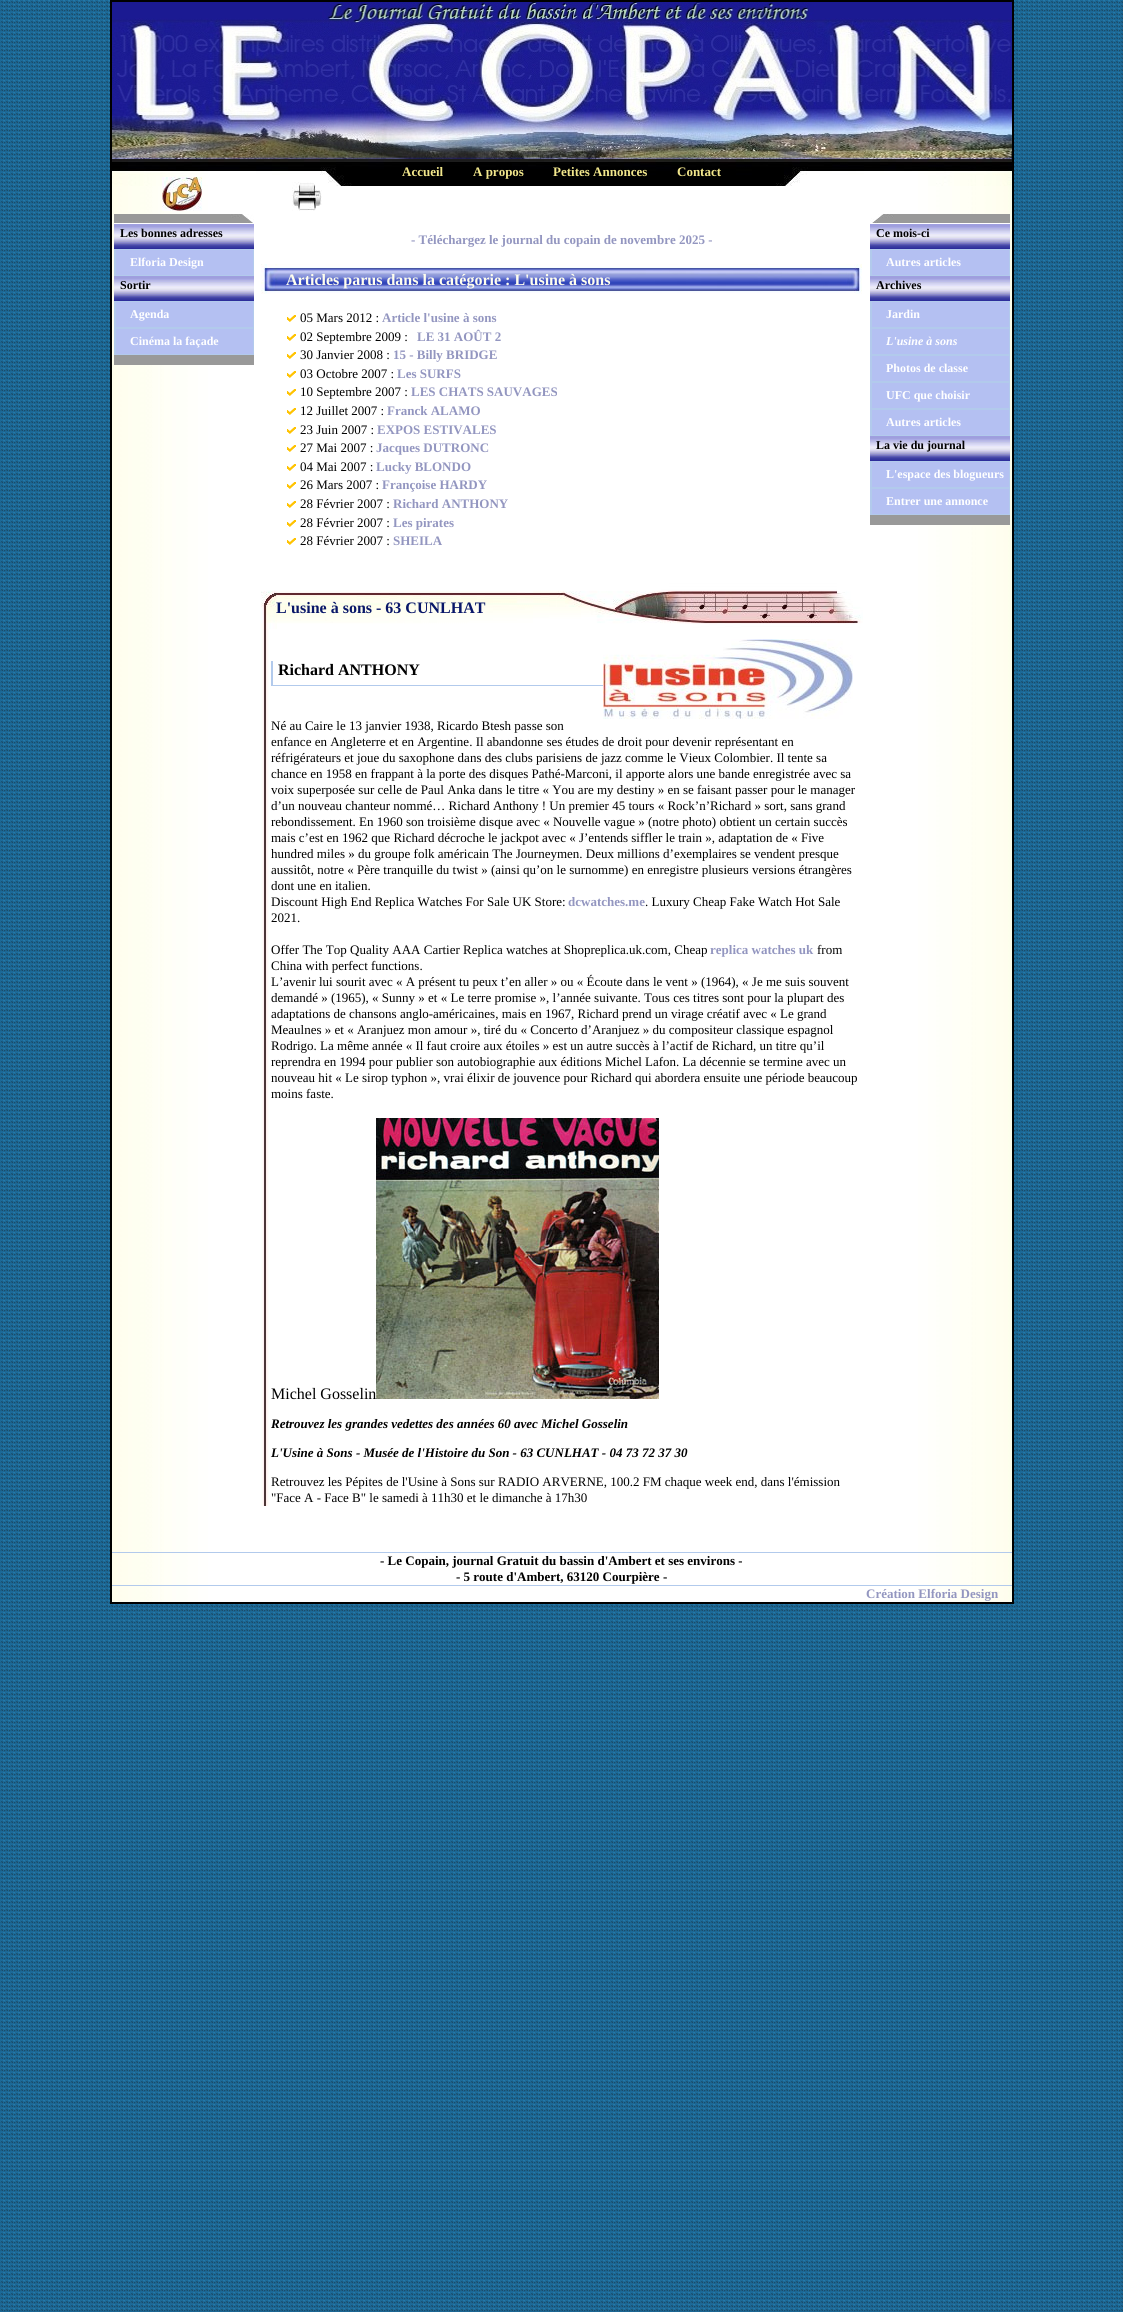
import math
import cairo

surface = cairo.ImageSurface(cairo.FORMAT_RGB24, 1123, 2312)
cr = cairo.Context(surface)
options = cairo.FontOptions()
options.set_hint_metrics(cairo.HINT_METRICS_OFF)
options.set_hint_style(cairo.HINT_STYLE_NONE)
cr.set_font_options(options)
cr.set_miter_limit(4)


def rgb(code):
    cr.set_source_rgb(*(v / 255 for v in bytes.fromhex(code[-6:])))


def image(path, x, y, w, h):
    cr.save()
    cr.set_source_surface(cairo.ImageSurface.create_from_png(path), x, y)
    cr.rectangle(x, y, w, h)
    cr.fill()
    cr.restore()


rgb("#ffffff")
cr.paint()
image("img/1.png", 0, 0, 1123, 2312)
image("img/2.png", 112, 186, 900, 1416)
cr.rectangle(111, 1, 902, 1602)
rgb("#000000")
cr.stroke()
image("img/3.png", 112, 2, 900, 157)
image("img/6.png", 112, 159, 900, 27)
image("img/4.png", 162, 177, 40, 34)
image("img/5.png", 292, 182, 30, 29)
rgb("#b4c0f2")
cr.rectangle(116, 250, 137, 104)
cr.fill()
image("img/7.png", 114, 214, 140, 10)
image("img/8.png", 114, 224, 140, 25)
rgb("#b2caec")
cr.rectangle(114, 249, 1, 27)
cr.fill()
cr.rectangle(115.5, 249.5, 138, 26)
cr.set_line_width(1)
cr.stroke()
image("img/8.png", 114, 276, 140, 25)
cr.rectangle(114, 301, 1, 54)
cr.fill()
cr.rectangle(115.5, 301.5, 138, 26)
cr.stroke()
cr.rectangle(115.5, 328.5, 138, 26)
cr.stroke()
rgb("#999999")
cr.rectangle(114, 355, 140, 10)
cr.fill()
image("img/9.png", 261, 264, 601, 30)
image("img/10.png", 287, 315, 9, 7)
image("img/10.png", 287, 334, 9, 7)
image("img/10.png", 287, 352, 9, 7)
image("img/10.png", 287, 371, 9, 7)
image("img/10.png", 287, 389, 9, 7)
image("img/10.png", 287, 408, 9, 7)
image("img/10.png", 287, 427, 9, 7)
image("img/10.png", 287, 445, 9, 7)
image("img/10.png", 287, 464, 9, 7)
image("img/10.png", 287, 482, 9, 7)
image("img/10.png", 287, 501, 9, 7)
image("img/10.png", 287, 520, 9, 7)
image("img/10.png", 287, 538, 9, 7)
image("img/11.png", 261, 629, 8, 877)
image("img/12.png", 261, 575, 602, 54)
rgb("#b2caec")
cr.rectangle(271, 685, 332, 1)
cr.fill()
cr.rectangle(271, 661, 2, 25)
cr.fill()
image("img/13.png", 603, 639, 250, 80)
image("img/14.png", 376, 1118, 283, 281)
rgb("#b4c0f2")
cr.rectangle(872, 250, 137, 264)
cr.fill()
image("img/15.png", 870, 214, 140, 10)
image("img/8.png", 870, 224, 140, 25)
rgb("#b2caec")
cr.rectangle(870, 249, 1, 27)
cr.fill()
cr.rectangle(871.5, 249.5, 138, 26)
cr.stroke()
image("img/8.png", 870, 276, 140, 25)
cr.rectangle(870, 301, 1, 135)
cr.fill()
cr.rectangle(871.5, 301.5, 138, 26)
cr.stroke()
cr.rectangle(871.5, 328.5, 138, 26)
cr.stroke()
cr.rectangle(871.5, 355.5, 138, 26)
cr.stroke()
cr.rectangle(871.5, 382.5, 138, 26)
cr.stroke()
cr.rectangle(871.5, 409.5, 138, 26)
cr.stroke()
image("img/8.png", 870, 436, 140, 25)
cr.rectangle(870, 461, 1, 54)
cr.fill()
cr.rectangle(871.5, 461.5, 138, 26)
cr.stroke()
cr.rectangle(871.5, 488.5, 138, 26)
cr.stroke()
for x, y, w, h, color in [
    (870, 515, 140, 10, "#999999"),
    (112, 1552, 900, 1, "#b2caec"),
    (112, 1585, 900, 1, "#b2caec"),
]:
    rgb(color)
    cr.rectangle(x, y, w, h)
    cr.fill()
cr.select_font_face("Liberation Serif", cairo.FONT_SLANT_NORMAL, cairo.FONT_WEIGHT_BOLD)
cr.set_font_size(13)
rgb("#f2e78c")
for x, y, s in [
    (402, 176, "Accueil"),
    (473, 176, "A propos"),
    (553, 176, "Petites Annonces"),
    (677, 176, "Contact"),
]:
    cr.move_to(x, y)
    cr.show_text(s)
cr.set_font_size(12)
rgb("#000000")
cr.move_to(120, 237)
cr.show_text("Les bonnes adresses")
rgb("#ffffff")
cr.move_to(130, 266)
cr.show_text("Elforia Design")
rgb("#000000")
cr.move_to(120, 289)
cr.show_text("Sortir")
rgb("#ffffff")
cr.move_to(130, 318)
cr.show_text("Agenda")
cr.move_to(130, 345)
cr.show_text("Cinéma la façade")
cr.set_font_size(13)
rgb("#9396c0")
cr.move_to(411, 244)
cr.show_text("- Téléchargez le journal du copain de novembre 2025 -")
cr.set_font_size(16)
rgb("#fffeed")
cr.move_to(286, 285)
cr.show_text("Articles parus dans la catégorie : L'usine à sons")
cr.select_font_face("Liberation Serif")
cr.set_font_size(13)
rgb("#000000")
cr.move_to(300, 322)
cr.show_text("05 Mars 2012 :")
cr.select_font_face("Liberation Serif", cairo.FONT_SLANT_NORMAL, cairo.FONT_WEIGHT_BOLD)
rgb("#9396c0")
cr.move_to(382, 322)
cr.show_text("Article l'usine à sons")
cr.select_font_face("Liberation Serif")
rgb("#000000")
cr.move_to(300, 341)
cr.show_text("02 Septembre 2009 :")
cr.select_font_face("Liberation Serif", cairo.FONT_SLANT_NORMAL, cairo.FONT_WEIGHT_BOLD)
rgb("#9396c0")
cr.move_to(417, 341)
cr.show_text("LE 31 AOÛT 2")
cr.select_font_face("Liberation Serif")
rgb("#000000")
cr.move_to(300, 359)
cr.show_text("30 Janvier 2008 :")
cr.select_font_face("Liberation Serif", cairo.FONT_SLANT_NORMAL, cairo.FONT_WEIGHT_BOLD)
rgb("#9396c0")
cr.move_to(393, 359)
cr.show_text("15 - Billy BRIDGE")
cr.select_font_face("Liberation Serif")
rgb("#000000")
cr.move_to(300, 378)
cr.show_text("03 Octobre 2007 :")
cr.select_font_face("Liberation Serif", cairo.FONT_SLANT_NORMAL, cairo.FONT_WEIGHT_BOLD)
rgb("#9396c0")
cr.move_to(397, 378)
cr.show_text("Les SURFS")
cr.select_font_face("Liberation Serif")
rgb("#000000")
cr.move_to(300, 396)
cr.show_text("10 Septembre 2007 :")
cr.select_font_face("Liberation Serif", cairo.FONT_SLANT_NORMAL, cairo.FONT_WEIGHT_BOLD)
rgb("#9396c0")
cr.move_to(411, 396)
cr.show_text("LES CHATS SAUVAGES")
cr.select_font_face("Liberation Serif")
rgb("#000000")
cr.move_to(300, 415)
cr.show_text("12 Juillet 2007 :")
cr.select_font_face("Liberation Serif", cairo.FONT_SLANT_NORMAL, cairo.FONT_WEIGHT_BOLD)
rgb("#9396c0")
cr.move_to(387, 415)
cr.show_text("Franck ALAMO")
cr.select_font_face("Liberation Serif")
rgb("#000000")
cr.move_to(300, 434)
cr.show_text("23 Juin 2007 :")
cr.select_font_face("Liberation Serif", cairo.FONT_SLANT_NORMAL, cairo.FONT_WEIGHT_BOLD)
rgb("#9396c0")
cr.move_to(377, 434)
cr.show_text("EXPOS ESTIVALES")
cr.select_font_face("Liberation Serif")
rgb("#000000")
cr.move_to(300, 452)
cr.show_text("27 Mai 2007 :")
cr.select_font_face("Liberation Serif", cairo.FONT_SLANT_NORMAL, cairo.FONT_WEIGHT_BOLD)
rgb("#9396c0")
cr.move_to(376, 452)
cr.show_text("Jacques DUTRONC")
cr.select_font_face("Liberation Serif")
rgb("#000000")
cr.move_to(300, 471)
cr.show_text("04 Mai 2007 :")
cr.select_font_face("Liberation Serif", cairo.FONT_SLANT_NORMAL, cairo.FONT_WEIGHT_BOLD)
rgb("#9396c0")
cr.move_to(376, 471)
cr.show_text("Lucky BLONDO")
cr.select_font_face("Liberation Serif")
rgb("#000000")
cr.move_to(300, 489)
cr.show_text("26 Mars 2007 :")
cr.select_font_face("Liberation Serif", cairo.FONT_SLANT_NORMAL, cairo.FONT_WEIGHT_BOLD)
rgb("#9396c0")
cr.move_to(382, 489)
cr.show_text("Françoise HARDY")
cr.select_font_face("Liberation Serif")
rgb("#000000")
cr.move_to(300, 508)
cr.show_text("28 Février 2007 :")
cr.select_font_face("Liberation Serif", cairo.FONT_SLANT_NORMAL, cairo.FONT_WEIGHT_BOLD)
rgb("#9396c0")
cr.move_to(393, 508)
cr.show_text("Richard ANTHONY")
cr.select_font_face("Liberation Serif")
rgb("#000000")
cr.move_to(300, 527)
cr.show_text("28 Février 2007 :")
cr.select_font_face("Liberation Serif", cairo.FONT_SLANT_NORMAL, cairo.FONT_WEIGHT_BOLD)
rgb("#9396c0")
cr.move_to(393, 527)
cr.show_text("Les pirates")
cr.select_font_face("Liberation Serif")
rgb("#000000")
cr.move_to(300, 545)
cr.show_text("28 Février 2007 :")
cr.select_font_face("Liberation Serif", cairo.FONT_SLANT_NORMAL, cairo.FONT_WEIGHT_BOLD)
rgb("#9396c0")
cr.move_to(393, 545)
cr.show_text("SHEILA")
cr.set_font_size(16)
rgb("#091769")
cr.move_to(276, 613)
cr.show_text("L'usine à sons - 63 CUNLHAT")
rgb("#000000")
cr.move_to(278, 675)
cr.show_text("Richard ANTHONY")
cr.select_font_face("Liberation Serif")
cr.set_font_size(13)
for x, y, s in [
    (271, 730, "Né au Caire le 13 janvier 1938, Ricardo Btesh passe son"),
    (271, 746, "enfance en Angleterre et en Argentine. Il abandonne ses études de droit pour devenir représentant en"),
    (271, 762, "réfrigérateurs et joue du saxophone dans des clubs parisiens de jazz comme le Vieux Colombier. Il tente sa"),
    (271, 778, "chance en 1958 en frappant à la porte des disques Pathé-Marconi, il apporte alors une bande enregistrée avec sa"),
    (271, 794, "voix superposée sur celle de Paul Anka dans le titre « You are my destiny » en se faisant passer pour le manager"),
    (271, 810, "d’un nouveau chanteur nommé… Richard Anthony ! Un premier 45 tours « Rock’n’Richard » sort, sans grand"),
    (271, 826, "rebondissement. En 1960 son troisième disque avec « Nouvelle vague » (notre photo) obtient un certain succès"),
    (271, 842, "mais c’est en 1962 que Richard décroche le jackpot avec « J’entends siffler le train », adaptation de « Five"),
    (271, 858, "hundred miles » du groupe folk américain The Journeymen. Deux millions d’exemplaires se vendent presque"),
    (271, 874, "aussitôt, notre « Père tranquille du twist » (ainsi qu’on le surnomme) en enregistre plusieurs versions étrangères"),
    (271, 890, "dont une en italien."),
    (271, 906, "Discount High End Replica Watches For Sale UK Store:"),
]:
    cr.move_to(x, y)
    cr.show_text(s)
cr.select_font_face("Liberation Serif", cairo.FONT_SLANT_NORMAL, cairo.FONT_WEIGHT_BOLD)
rgb("#9396c0")
cr.move_to(568, 906)
cr.show_text("dcwatches.me")
cr.select_font_face("Liberation Serif")
rgb("#000000")
for x, y, s in [
    (645, 906, ". Luxury Cheap Fake Watch Hot Sale"),
    (271, 922, "2021."),
    (271, 954, "Offer The Top Quality AAA Cartier Replica watches at Shopreplica.uk.com, Cheap"),
]:
    cr.move_to(x, y)
    cr.show_text(s)
cr.select_font_face("Liberation Serif", cairo.FONT_SLANT_NORMAL, cairo.FONT_WEIGHT_BOLD)
rgb("#9396c0")
cr.move_to(710, 954)
cr.show_text("replica watches uk")
cr.select_font_face("Liberation Serif")
rgb("#000000")
for x, y, s in [
    (817, 954, "from"),
    (271, 970, "China with perfect functions."),
    (271, 986, "L’avenir lui sourit avec « A présent tu peux t’en aller » ou « Écoute dans le vent » (1964), « Je me suis souvent"),
    (271, 1002, "demandé » (1965), « Sunny » et « Le terre promise », l’année suivante. Tous ces titres sont pour la plupart des"),
    (271, 1018, "adaptations de chansons anglo-américaines, mais en 1967, Richard prend un virage créatif avec « Le grand"),
    (271, 1034, "Meaulnes » et « Aranjuez mon amour », tiré du « Concerto d’Aranjuez » du compositeur classique espagnol"),
    (271, 1050, "Rodrigo. La même année « Il faut croire aux étoiles » est un autre succès à l’actif de Richard, un titre qu’il"),
    (271, 1066, "reprendra en 1994 pour publier son autobiographie aux éditions Michel Lafon. La décennie se termine avec un"),
    (271, 1082, "nouveau hit « Le sirop typhon », vrai élixir de jouvence pour Richard qui abordera ensuite une période beaucoup"),
    (271, 1098, "moins faste."),
]:
    cr.move_to(x, y)
    cr.show_text(s)
cr.set_font_size(16)
cr.move_to(271, 1399)
cr.show_text("Michel Gosselin")
cr.select_font_face("Liberation Serif", cairo.FONT_SLANT_ITALIC, cairo.FONT_WEIGHT_BOLD)
cr.set_font_size(13)
cr.move_to(271, 1428)
cr.show_text("Retrouvez les grandes vedettes des années 60 avec Michel Gosselin")
cr.move_to(271, 1457)
cr.show_text("L'Usine à Sons - Musée de l'Histoire du Son - 63 CUNLHAT - 04 73 72 37 30")
cr.select_font_face("Liberation Serif")
cr.move_to(271, 1486)
cr.show_text("Retrouvez les Pépites de l'Usine à Sons sur RADIO ARVERNE, 100.2 FM chaque week end, dans l'émission")
cr.move_to(271, 1502)
cr.show_text("\"Face A - Face B\" le samedi à 11h30 et le dimanche à 17h30")
cr.select_font_face("Liberation Serif", cairo.FONT_SLANT_NORMAL, cairo.FONT_WEIGHT_BOLD)
cr.set_font_size(12)
cr.move_to(876, 237)
cr.show_text("Ce mois-ci")
rgb("#ffffff")
cr.move_to(886, 266)
cr.show_text("Autres articles")
rgb("#000000")
cr.move_to(876, 289)
cr.show_text("Archives")
rgb("#ffffff")
cr.move_to(886, 318)
cr.show_text("Jardin")
cr.select_font_face("Liberation Serif", cairo.FONT_SLANT_ITALIC, cairo.FONT_WEIGHT_BOLD)
cr.move_to(886, 345)
cr.show_text("L'usine à sons")
cr.select_font_face("Liberation Serif", cairo.FONT_SLANT_NORMAL, cairo.FONT_WEIGHT_BOLD)
for x, y, s in [
    (886, 372, "Photos de classe"),
    (886, 399, "UFC que choisir"),
    (886, 426, "Autres articles"),
]:
    cr.move_to(x, y)
    cr.show_text(s)
rgb("#000000")
cr.move_to(876, 449)
cr.show_text("La vie du journal")
rgb("#ffffff")
cr.move_to(886, 478)
cr.show_text("L'espace des blogueurs")
cr.move_to(886, 505)
cr.show_text("Entrer une annonce")
cr.set_font_size(13)
rgb("#000000")
cr.move_to(380, 1565)
cr.show_text("- Le Copain, journal Gratuit du bassin d'Ambert et ses environs -")
cr.move_to(456, 1581)
cr.show_text("- 5 route d'Ambert, 63120 Courpière -")
rgb("#9396c0")
cr.move_to(866, 1598)
cr.show_text("Création Elforia Design")
surface.write_to_png("page.png")
